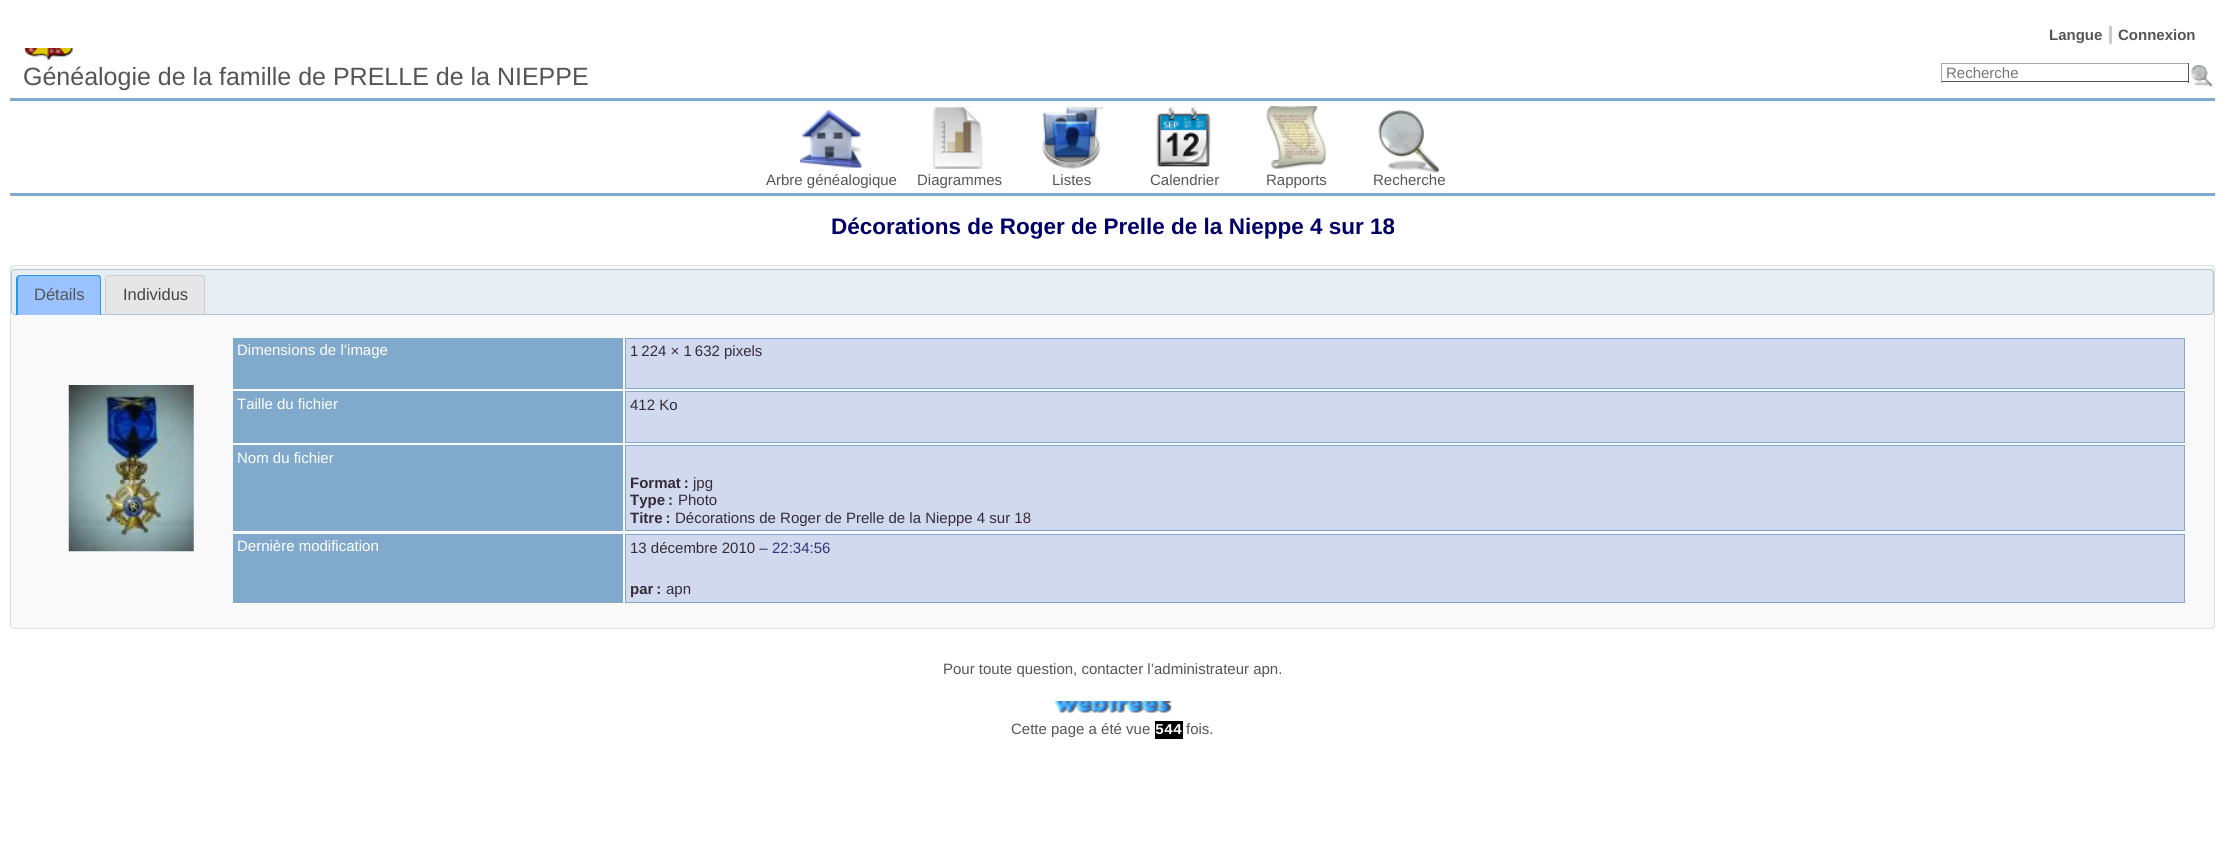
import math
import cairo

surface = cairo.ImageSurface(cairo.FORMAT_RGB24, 2225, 847)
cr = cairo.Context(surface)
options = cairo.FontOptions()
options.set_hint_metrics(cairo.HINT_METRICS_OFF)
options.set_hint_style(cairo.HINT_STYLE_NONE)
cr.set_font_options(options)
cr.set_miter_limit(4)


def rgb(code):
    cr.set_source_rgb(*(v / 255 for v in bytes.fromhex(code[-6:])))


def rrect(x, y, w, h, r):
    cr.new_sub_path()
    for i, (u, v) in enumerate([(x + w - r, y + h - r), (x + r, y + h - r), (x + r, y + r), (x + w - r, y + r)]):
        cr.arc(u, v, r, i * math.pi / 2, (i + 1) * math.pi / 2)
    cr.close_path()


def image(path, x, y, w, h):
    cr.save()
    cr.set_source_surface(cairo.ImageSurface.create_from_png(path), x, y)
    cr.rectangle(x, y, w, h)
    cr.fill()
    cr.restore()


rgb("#ffffff")
cr.paint()
rgb("#cccccc")
cr.rectangle(2109, 26, 3, 18)
cr.fill()
image("img/1.png", 24, 48, 49, 13)
for x, y, w, h, color in [
    (1941, 63, 248, 1, "#aaaaaa"),
    (2188, 63, 1, 20, "#555555"),
    (1941, 81, 248, 1, "#555555"),
    (1941, 63, 1, 20, "#aaaaaa"),
]:
    rgb(color)
    cr.rectangle(x, y, w, h)
    cr.fill()
image("img/2.png", 2191, 65, 22, 22)
rgb("#81a9cb")
cr.rectangle(10, 98, 2205, 3)
cr.fill()
cr.rectangle(10, 193, 2205, 3)
cr.fill()
image("img/3.png", 800, 109, 63, 59)
image("img/4.png", 932, 106, 51, 63)
image("img/5.png", 1042, 106, 61, 63)
image("img/6.png", 1156, 106, 55, 61)
image("img/7.png", 1266, 106, 61, 63)
image("img/8.png", 1377, 109, 63, 64)
rgb("#f9f9f9")
rrect(10.5, 265.5, 2204, 363, 3.5)
cr.fill_preserve()
rgb("#dddddd")
cr.set_line_width(1)
cr.stroke()
image("img/9.png", 11, 269, 2203, 46)
rrect(11.5, 269.5, 2202, 45, 3.5)
rgb("#b2c7d7")
cr.stroke()
image("img/10.png", 16, 275, 86, 40)
rgb("#2694e8")
cr.set_fill_rule(cairo.FILL_RULE_EVEN_ODD)
cr.new_path()
cr.move_to(20, 275)
cr.line_to(98, 275)
cr.curve_to(100, 275, 101, 277, 101, 279)
cr.line_to(101, 315)
cr.line_to(16, 315)
cr.line_to(16, 279)
cr.curve_to(16, 277, 18, 275, 20, 275)
cr.close_path()
cr.move_to(20, 276)
cr.line_to(98, 276)
cr.curve_to(99, 276, 100, 277, 100, 279)
cr.line_to(100, 315)
cr.line_to(18, 315)
cr.line_to(18, 279)
cr.curve_to(18, 277, 19, 276, 20, 276)
cr.close_path()
cr.fill()
rgb("#e6e6e6")
cr.rectangle(105, 275, 100, 39)
cr.fill()
rgb("#cccccc")
cr.new_path()
cr.move_to(109, 275)
cr.line_to(201, 275)
cr.curve_to(203, 275, 205, 277, 205, 279)
cr.line_to(205, 314)
cr.line_to(105, 314)
cr.line_to(105, 279)
cr.curve_to(105, 277, 107, 275, 109, 275)
cr.close_path()
cr.move_to(109, 276)
cr.line_to(201, 276)
cr.curve_to(203, 276, 204, 277, 204, 279)
cr.line_to(204, 314)
cr.line_to(106, 314)
cr.line_to(106, 279)
cr.curve_to(106, 277, 107, 276, 109, 276)
cr.close_path()
cr.fill()
image("img/11.png", 68, 385, 126, 167)
rgb("#81a9cb")
cr.rectangle(233, 338, 390, 51)
cr.fill()
rgb("#d1d9ef")
cr.rectangle(625.5, 338.5, 1559, 50)
cr.fill_preserve()
rgb("#81a9cb")
cr.stroke()
cr.rectangle(233, 391, 390, 52)
cr.fill()
rgb("#d1d9ef")
cr.rectangle(625.5, 391.5, 1559, 51)
cr.fill_preserve()
rgb("#81a9cb")
cr.stroke()
cr.rectangle(233, 445, 390, 86)
cr.fill()
rgb("#d1d9ef")
cr.rectangle(625.5, 445.5, 1559, 85)
cr.fill_preserve()
rgb("#81a9cb")
cr.stroke()
cr.rectangle(233, 534, 390, 69)
cr.fill()
rgb("#d1d9ef")
cr.rectangle(625.5, 534.5, 1559, 68)
cr.fill_preserve()
rgb("#81a9cb")
cr.stroke()
image("img/12.png", 1053, 701, 119, 12)
rgb("#000000")
cr.rectangle(1155, 721, 28, 18)
cr.fill()
cr.select_font_face("Liberation Sans", cairo.FONT_SLANT_NORMAL, cairo.FONT_WEIGHT_BOLD)
cr.set_font_size(15)
rgb("#555555")
cr.move_to(2049, 40)
cr.show_text("Langue")
cr.move_to(2118, 40)
cr.show_text("Connexion")
cr.select_font_face("Liberation Sans")
cr.set_font_size(25)
cr.move_to(23, 85)
cr.show_text("Généalogie de la famille de PRELLE de la NIEPPE")
cr.set_font_size(15)
rgb("#757575")
cr.move_to(1946, 78)
cr.show_text("Recherche")
rgb("#555555")
for x, y, s in [
    (766, 185, "Arbre généalogique"),
    (917, 185, "Diagrammes"),
    (1052, 185, "Listes"),
    (1150, 185, "Calendrier"),
    (1266, 185, "Rapports"),
    (1373, 185, "Recherche"),
]:
    cr.move_to(x, y)
    cr.show_text(s)
cr.select_font_face("Liberation Sans", cairo.FONT_SLANT_NORMAL, cairo.FONT_WEIGHT_BOLD)
cr.set_font_size(22.5)
rgb("#000066")
cr.move_to(831, 234)
cr.show_text("Décorations de Roger de Prelle de la Nieppe 4 sur 18")
cr.select_font_face("Liberation Sans")
cr.set_font_size(16.5)
rgb("#555555")
cr.move_to(34, 300)
cr.show_text("Détails")
rgb("#444444")
cr.move_to(123, 300)
cr.show_text("Individus")
cr.set_font_size(15)
rgb("#ffffff")
cr.move_to(237, 355)
cr.show_text("Dimensions de l’image")
rgb("#362b36")
cr.move_to(630, 356)
cr.show_text("1 224 × 1 632 pixels")
rgb("#ffffff")
cr.move_to(237, 409)
cr.show_text("Taille du fichier")
rgb("#362b36")
cr.move_to(630, 410)
cr.show_text("412 Ko")
rgb("#ffffff")
cr.move_to(237, 463)
cr.show_text("Nom du fichier")
cr.select_font_face("Liberation Sans", cairo.FONT_SLANT_NORMAL, cairo.FONT_WEIGHT_BOLD)
rgb("#362b36")
cr.move_to(630, 488)
cr.show_text("Format :")
cr.select_font_face("Liberation Sans")
cr.move_to(693, 488)
cr.show_text("jpg")
cr.select_font_face("Liberation Sans", cairo.FONT_SLANT_NORMAL, cairo.FONT_WEIGHT_BOLD)
cr.move_to(630, 505)
cr.show_text("Type :")
cr.select_font_face("Liberation Sans")
cr.move_to(678, 505)
cr.show_text("Photo")
cr.select_font_face("Liberation Sans", cairo.FONT_SLANT_NORMAL, cairo.FONT_WEIGHT_BOLD)
cr.move_to(630, 523)
cr.show_text("Titre :")
cr.select_font_face("Liberation Sans")
cr.move_to(675, 523)
cr.show_text("Décorations de Roger de Prelle de la Nieppe 4 sur 18")
rgb("#ffffff")
cr.move_to(237, 551)
cr.show_text("Dernière modification")
rgb("#362b36")
cr.move_to(630, 553)
cr.show_text("13 décembre 2010 –")
rgb("#333377")
cr.move_to(772, 553)
cr.show_text("22:34:56")
cr.select_font_face("Liberation Sans", cairo.FONT_SLANT_NORMAL, cairo.FONT_WEIGHT_BOLD)
rgb("#362b36")
cr.move_to(630, 594)
cr.show_text("par :")
cr.select_font_face("Liberation Sans")
cr.move_to(666, 594)
cr.show_text("apn")
rgb("#555555")
cr.move_to(943, 674)
cr.show_text("Pour toute question, contacter l’administrateur apn.")
cr.move_to(1011, 734)
cr.show_text("Cette page a été vue")
cr.select_font_face("Liberation Mono", cairo.FONT_SLANT_NORMAL, cairo.FONT_WEIGHT_BOLD)
rgb("#ffffff")
cr.move_to(1155, 734)
cr.show_text("544")
cr.select_font_face("Liberation Sans")
rgb("#555555")
cr.move_to(1186, 734)
cr.show_text("fois.")
surface.write_to_png("page.png")
